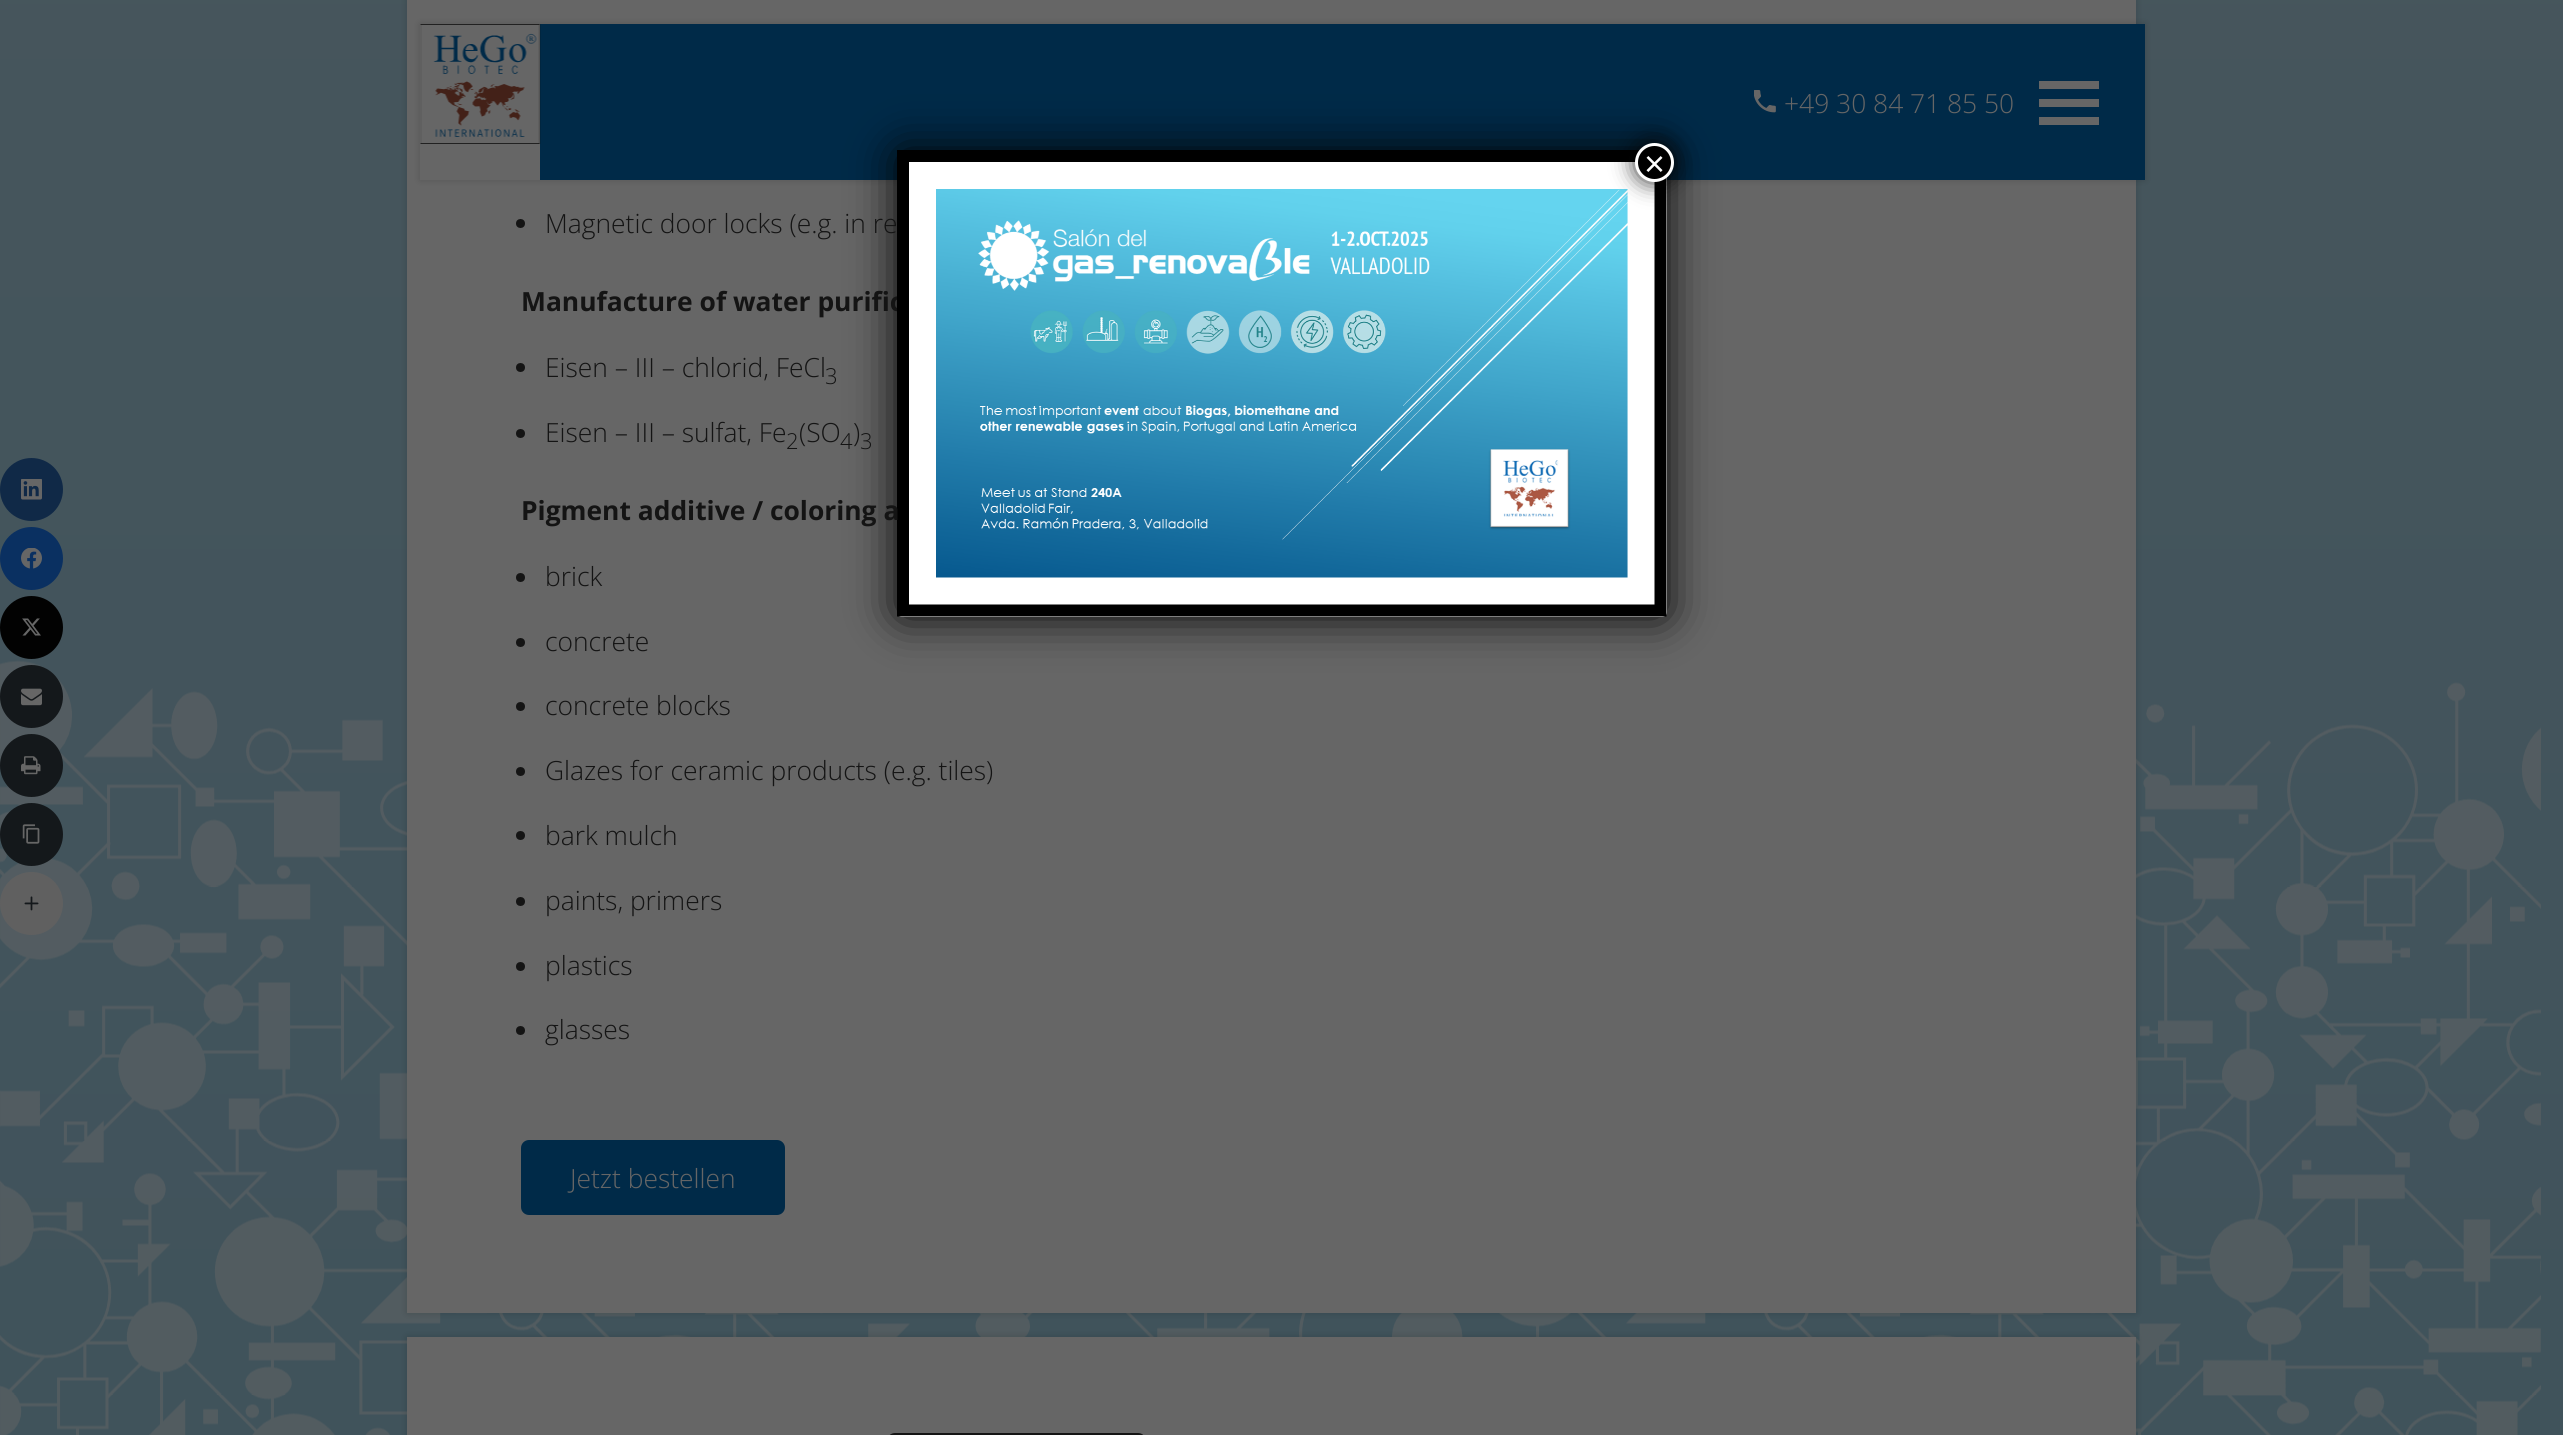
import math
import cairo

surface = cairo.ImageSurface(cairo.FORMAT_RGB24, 2563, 1435)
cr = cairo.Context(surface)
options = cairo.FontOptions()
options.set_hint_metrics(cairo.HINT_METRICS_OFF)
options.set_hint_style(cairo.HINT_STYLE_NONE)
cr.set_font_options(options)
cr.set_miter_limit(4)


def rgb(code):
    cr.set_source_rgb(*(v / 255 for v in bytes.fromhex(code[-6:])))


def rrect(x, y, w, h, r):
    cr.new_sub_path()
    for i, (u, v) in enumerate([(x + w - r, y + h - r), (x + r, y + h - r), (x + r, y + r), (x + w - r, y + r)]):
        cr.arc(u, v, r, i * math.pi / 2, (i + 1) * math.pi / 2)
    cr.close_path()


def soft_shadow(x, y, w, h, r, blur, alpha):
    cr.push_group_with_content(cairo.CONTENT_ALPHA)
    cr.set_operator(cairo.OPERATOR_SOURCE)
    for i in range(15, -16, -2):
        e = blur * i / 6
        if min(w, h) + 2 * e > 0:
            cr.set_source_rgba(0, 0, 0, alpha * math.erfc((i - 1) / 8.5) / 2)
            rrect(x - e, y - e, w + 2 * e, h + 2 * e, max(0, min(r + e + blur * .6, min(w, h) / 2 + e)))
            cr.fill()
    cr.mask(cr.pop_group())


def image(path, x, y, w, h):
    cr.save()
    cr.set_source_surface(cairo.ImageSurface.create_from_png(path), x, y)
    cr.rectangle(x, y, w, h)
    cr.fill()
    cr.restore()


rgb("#ffffff")
cr.paint()
gradient = cairo.LinearGradient(1282, 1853, 1282, -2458)
gradient.add_color_stop_rgba(0, 0.243, 0.322, 0.357, 1)
gradient.add_color_stop_rgba(1, 0.314, 0.353, 0.369, 1)
cr.set_source(gradient)
cr.rectangle(0, 0, 2563, 1435)
cr.fill()
image("img/11.png", 0, 660, 2541, 775)
rgb("#000000")
soft_shadow(407, -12, 1729, 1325, 0, 4, 0.16)
cr.rectangle(408, -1, 1727, 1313)
rgb("#666666")
cr.stroke()
cr.rectangle(409, 0, 1725, 1311)
cr.fill()
rgb("#000000")
soft_shadow(420, 24, 1725, 156, 0, 4, 0.16)
rgb("#002a48")
cr.rectangle(540, 24, 1605, 156)
cr.fill()
rgb("#666666")
cr.rectangle(420, 24, 120, 156)
cr.fill()
image("img/1.png", 420, 24, 121, 120)
image("img/2.png", 1754, 90, 22, 23)
for x, y, w, h, color in [
    (2039, 81, 60, 8, "#666666"),
    (2039, 99, 60, 8, "#666666"),
    (2039, 117, 60, 8, "#666666"),
]:
    rgb(color)
    cr.rectangle(x, y, w, h)
    cr.fill()
rgb("#020202")
soft_shadow(897, 150, 770, 467, 5, 22.5, 1)
rgb("#102947")
cr.arc(31.5, 489.5, 31.5, 0, 2 * math.pi)
cr.fill()
image("img/4.png", 21, 479, 21, 21)
rgb("#0a3061")
cr.arc(31.5, 558.5, 31.5, 0, 2 * math.pi)
cr.fill()
image("img/5.png", 21, 548, 21, 21)
rgb("#020202")
cr.arc(31.5, 627.5, 31.5, 0, 2 * math.pi)
cr.fill()
image("img/6.png", 22, 618, 19, 18)
rgb("#14181b")
cr.arc(31.5, 696.5, 31.5, 0, 2 * math.pi)
cr.fill()
image("img/7.png", 21, 688, 21, 18)
cr.arc(31.5, 765.5, 31.5, 0, 2 * math.pi)
cr.fill()
image("img/8.png", 21, 756, 20, 19)
cr.arc(31.5, 834.5, 31.5, 0, 2 * math.pi)
cr.fill()
image("img/9.png", 22, 824, 18, 20)
rgb("#606060")
cr.arc(31.5, 903.5, 31.5, 0, 2 * math.pi)
cr.fill()
image("img/10.png", 24, 896, 15, 15)
rgb("#141414")
cr.arc(520.5, 223.5, 4.5, 0, 2 * math.pi)
cr.fill()
cr.arc(520.5, 367.5, 4.5, 0, 2 * math.pi)
cr.fill()
cr.arc(520.5, 433.5, 4.5, 0, 2 * math.pi)
cr.fill()
cr.arc(520.5, 577.5, 4.5, 0, 2 * math.pi)
cr.fill()
cr.arc(520.5, 642.5, 4.5, 0, 2 * math.pi)
cr.fill()
cr.arc(520.5, 706.5, 4.5, 0, 2 * math.pi)
cr.fill()
cr.arc(520.5, 771.5, 4.5, 0, 2 * math.pi)
cr.fill()
cr.arc(520.5, 835.5, 4.5, 0, 2 * math.pi)
cr.fill()
cr.arc(520.5, 901.5, 4.5, 0, 2 * math.pi)
cr.fill()
cr.arc(520.5, 966.5, 4.5, 0, 2 * math.pi)
cr.fill()
cr.arc(520.5, 1030.5, 4.5, 0, 2 * math.pi)
cr.fill()
rgb("#002a48")
rrect(522, 1141, 262, 73, 7)
cr.fill_preserve()
cr.stroke()
rgb("#000000")
soft_shadow(407, 1337, 1729, 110, 0, 4, 0.16)
rgb("#666666")
cr.rectangle(407, 1337, 1729, 98)
cr.fill()
rrect(888, 1434, 257, 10, 7)
rgb("#141414")
cr.stroke()
cr.select_font_face("Open Sans Light")
cr.set_font_size(26.4)
rgb("#666666")
cr.move_to(1784, 113)
cr.show_text("+49 30 84 71 85 50")
rgb("#141414")
cr.move_to(545, 233)
cr.show_text("Magnetic door locks (e.g. in re")
cr.select_font_face("Open Sans", cairo.FONT_SLANT_NORMAL, cairo.FONT_WEIGHT_BOLD)
cr.move_to(521, 311)
cr.show_text("Manufacture of water purific")
rgb("#ffffff")
rrect(897, 150, 770, 467, 5)
cr.fill()
cr.new_path()
cr.move_to(903, 156)
cr.line_to(1660.5, 156)
cr.line_to(1660.5, 610.5)
cr.line_to(903, 610.5)
cr.close_path()
rgb("#000000")
cr.set_line_width(12)
cr.stroke()
image("img/3.png", 936, 189, 692, 389)
rgb("#020202")
soft_shadow(1634, 141, 42, 42, 21, 11, 0.75)
rgb("#000000")
cr.arc(1654.5, 162.5, 18, 0, 2 * math.pi)
cr.fill_preserve()
rgb("#ffffff")
cr.set_line_width(3)
cr.stroke()
cr.select_font_face("Liberation Sans")
cr.set_font_size(36)
cr.move_to(1644, 176)
cr.show_text("×")
cr.select_font_face("Open Sans Light")
cr.set_font_size(26.4)
rgb("#141414")
cr.move_to(545, 377)
cr.show_text("Eisen – III – chlorid, FeCl")
cr.set_font_size(22)
cr.move_to(825, 384)
cr.show_text("3")
cr.set_font_size(26.4)
cr.move_to(545, 442)
cr.show_text("Eisen – III – sulfat, Fe")
cr.set_font_size(22)
cr.move_to(786, 449)
cr.show_text("2")
cr.set_font_size(26.4)
cr.move_to(799, 442)
cr.show_text("(SO")
cr.set_font_size(22)
cr.move_to(840, 449)
cr.show_text("4")
cr.set_font_size(26.4)
cr.move_to(853, 442)
cr.show_text(")")
cr.set_font_size(22)
cr.move_to(860, 449)
cr.show_text("3")
cr.select_font_face("Open Sans", cairo.FONT_SLANT_NORMAL, cairo.FONT_WEIGHT_BOLD)
cr.set_font_size(26.4)
cr.move_to(521, 520)
cr.show_text("Pigment additive / coloring a")
cr.select_font_face("Open Sans Light")
for x, y, s in [
    (545, 586, "brick"),
    (545, 651, "concrete"),
    (545, 715, "concrete blocks"),
    (545, 780, "Glazes for ceramic products (e.g. tiles)"),
    (545, 845, "bark mulch"),
    (545, 910, "paints, primers"),
    (545, 975, "plastics"),
    (545, 1039, "glasses"),
]:
    cr.move_to(x, y)
    cr.show_text(s)
rgb("#666666")
cr.move_to(570, 1188)
cr.show_text("Jetzt bestellen")
surface.write_to_png("page.png")
